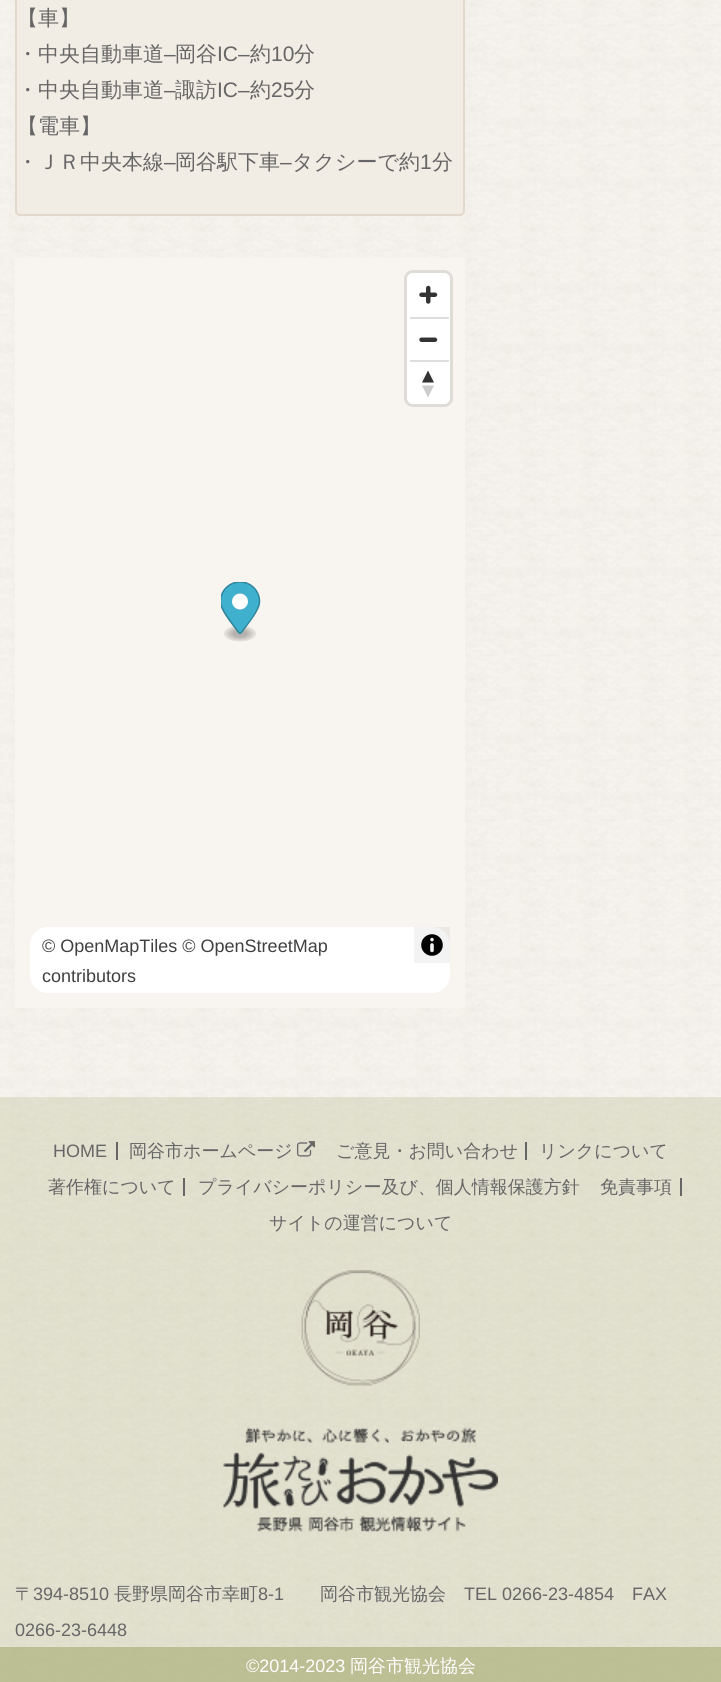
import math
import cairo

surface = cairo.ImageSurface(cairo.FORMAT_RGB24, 721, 1682)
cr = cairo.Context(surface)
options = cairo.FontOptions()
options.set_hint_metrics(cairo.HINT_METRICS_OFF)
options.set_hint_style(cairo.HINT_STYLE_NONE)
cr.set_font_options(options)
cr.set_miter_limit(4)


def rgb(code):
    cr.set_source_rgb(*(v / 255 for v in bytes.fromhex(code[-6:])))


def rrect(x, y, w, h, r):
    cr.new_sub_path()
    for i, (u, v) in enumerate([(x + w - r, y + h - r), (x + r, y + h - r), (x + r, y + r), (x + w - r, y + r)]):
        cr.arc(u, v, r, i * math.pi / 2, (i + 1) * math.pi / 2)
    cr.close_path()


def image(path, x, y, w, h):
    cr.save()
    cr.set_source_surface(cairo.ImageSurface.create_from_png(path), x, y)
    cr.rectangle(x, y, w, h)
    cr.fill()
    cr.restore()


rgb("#ffffff")
cr.paint()
image("img/1.png", 0, 0, 721, 1682)
rgb("#f1ece4")
rrect(16, -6, 448, 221, 4)
cr.fill_preserve()
rgb("#e3d9ca")
cr.stroke()
rgb("#f8f4f0")
cr.rectangle(15, 258, 450, 750)
cr.fill()
image("img/2.png", 221, 582, 40, 60)
rrect(405.5, 271.5, 46, 134, 7.5)
rgb("#dfdcd8")
cr.set_line_width(3)
cr.stroke()
rgb("#ffffff")
rrect(407, 273, 43, 131, 6)
cr.fill()
image("img/3.png", 419, 285, 19, 19)
rgb("#dddddd")
cr.rectangle(410, 317, 39, 2)
cr.fill()
image("img/4.png", 419, 337, 19, 5)
cr.rectangle(410, 360, 39, 2)
cr.fill()
rgb("#333333")
cr.new_path()
cr.move_to(422, 382.5)
cr.line_to(428, 370.5)
cr.line_to(434, 382.5)
cr.close_path()
cr.fill()
rgb("#cccccc")
cr.new_path()
cr.move_to(422, 385.5)
cr.line_to(428, 397.5)
cr.line_to(434, 385.5)
cr.close_path()
cr.fill()
rgb("#ffffff")
rrect(30, 927, 420, 66, 18)
cr.fill()
cr.set_source_rgba(0, 0, 0, 0.05)
cr.rectangle(414, 927, 36, 36)
cr.fill()
image("img/5.png", 421, 934, 22, 22)
cr.set_source_rgba(0.6, 0.624, 0.353, 0.2)
cr.rectangle(0, 1097, 721, 585)
cr.fill()
rgb("#666666")
cr.rectangle(116, 1142, 2, 18)
cr.fill()
image("img/6.png", 297, 1141, 18, 16)
for x, y, w, h, color in [
    (525, 1142, 2, 18, "#666666"),
    (183, 1178, 2, 18, "#666666"),
    (680, 1178, 2, 18, "#666666"),
]:
    rgb(color)
    cr.rectangle(x, y, w, h)
    cr.fill()
image("img/7.png", 301, 1270, 119, 116)
image("img/8.png", 223, 1427, 275, 106)
cr.set_source_rgba(0.6, 0.624, 0.353, 0.5)
cr.rectangle(0, 1647, 721, 35)
cr.fill()
cr.select_font_face("WenQuanYi Zen Hei Medium")
cr.set_font_size(21)
rgb("#666666")
cr.move_to(17, 25)
cr.show_text("【車】")
cr.move_to(17, 61)
cr.show_text("・中央自動車道")
cr.select_font_face("Liberation Sans")
cr.move_to(164, 61)
cr.show_text("–")
cr.select_font_face("WenQuanYi Zen Hei Medium")
cr.move_to(175, 61)
cr.show_text("岡谷")
cr.select_font_face("Liberation Sans")
cr.move_to(217, 61)
cr.show_text("IC–")
cr.select_font_face("WenQuanYi Zen Hei Medium")
cr.move_to(250, 61)
cr.show_text("約")
cr.select_font_face("Liberation Sans")
cr.move_to(271, 61)
cr.show_text("10")
cr.select_font_face("WenQuanYi Zen Hei Medium")
cr.move_to(294, 61)
cr.show_text("分")
cr.move_to(17, 97)
cr.show_text("・中央自動車道")
cr.select_font_face("Liberation Sans")
cr.move_to(164, 97)
cr.show_text("–")
cr.select_font_face("WenQuanYi Zen Hei Medium")
cr.move_to(175, 97)
cr.show_text("諏訪")
cr.select_font_face("Liberation Sans")
cr.move_to(217, 97)
cr.show_text("IC–")
cr.select_font_face("WenQuanYi Zen Hei Medium")
cr.move_to(250, 97)
cr.show_text("約")
cr.select_font_face("Liberation Sans")
cr.move_to(271, 97)
cr.show_text("25")
cr.select_font_face("WenQuanYi Zen Hei Medium")
for x, y, s in [
    (294, 97, "分"),
    (17, 133, "【電車】"),
    (17, 169, "・ＪＲ中央本線"),
]:
    cr.move_to(x, y)
    cr.show_text(s)
cr.select_font_face("Liberation Sans")
cr.move_to(164, 169)
cr.show_text("–")
cr.select_font_face("WenQuanYi Zen Hei Medium")
cr.move_to(175, 169)
cr.show_text("岡谷駅下車")
cr.select_font_face("Liberation Sans")
cr.move_to(280, 169)
cr.show_text("–")
cr.select_font_face("WenQuanYi Zen Hei Medium")
cr.move_to(292, 169)
cr.show_text("タクシーで約")
cr.select_font_face("Liberation Sans")
cr.move_to(420, 169)
cr.show_text("1")
cr.select_font_face("WenQuanYi Zen Hei Medium")
cr.move_to(432, 169)
cr.show_text("分")
cr.select_font_face("Liberation Sans")
cr.set_font_size(18)
rgb("#404040")
cr.move_to(42, 952)
cr.show_text("© OpenMapTiles © OpenStreetMap")
cr.move_to(42, 982)
cr.show_text("contributors")
rgb("#666666")
cr.move_to(53, 1157)
cr.show_text("HOME")
cr.select_font_face("WenQuanYi Zen Hei Medium")
for x, y, s in [
    (129, 1157, "岡谷市ホームページ"),
    (336, 1157, "ご意見・お問い合わせ"),
    (539, 1157, "リンクについて"),
    (48, 1193, "著作権について"),
    (198, 1193, "プライバシーポリシー及び、個人情報保護方針"),
    (600, 1193, "免責事項"),
    (269, 1229, "サイトの運営について"),
    (15, 1600, "〒"),
]:
    cr.move_to(x, y)
    cr.show_text(s)
cr.select_font_face("Liberation Sans")
cr.move_to(33, 1600)
cr.show_text("394-8510")
cr.select_font_face("WenQuanYi Zen Hei Medium")
cr.move_to(114, 1600)
cr.show_text("長野県岡谷市幸町")
cr.select_font_face("Liberation Sans")
cr.move_to(258, 1600)
cr.show_text("8-1")
cr.select_font_face("WenQuanYi Zen Hei Medium")
cr.move_to(320, 1600)
cr.show_text("岡谷市観光協会")
cr.select_font_face("Liberation Sans")
for x, y, s in [
    (464, 1600, "TEL 0266-23-4854"),
    (632, 1600, "FAX"),
    (15, 1636, "0266-23-6448"),
]:
    cr.move_to(x, y)
    cr.show_text(s)
rgb("#ffffff")
cr.move_to(246, 1672)
cr.show_text("©2014-2023")
cr.select_font_face("WenQuanYi Zen Hei Medium")
cr.move_to(350, 1672)
cr.show_text("岡谷市観光協会")
surface.write_to_png("page.png")
